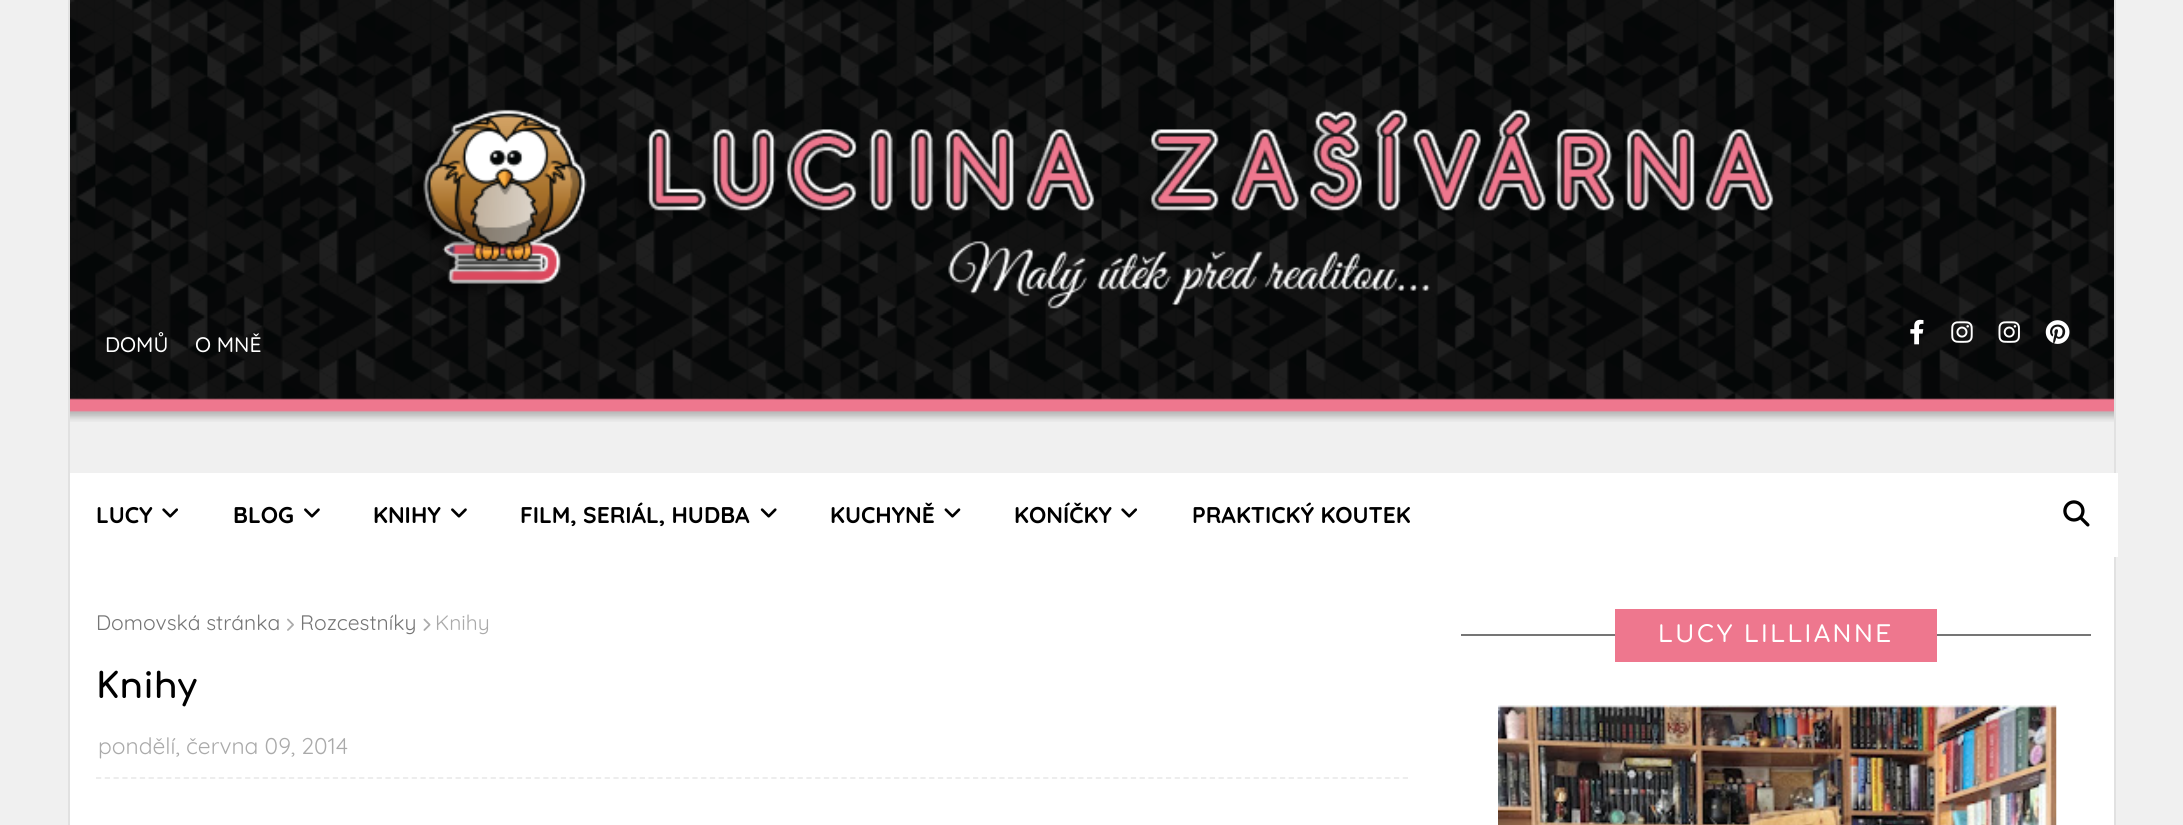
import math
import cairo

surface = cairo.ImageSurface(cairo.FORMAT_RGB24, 2183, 825)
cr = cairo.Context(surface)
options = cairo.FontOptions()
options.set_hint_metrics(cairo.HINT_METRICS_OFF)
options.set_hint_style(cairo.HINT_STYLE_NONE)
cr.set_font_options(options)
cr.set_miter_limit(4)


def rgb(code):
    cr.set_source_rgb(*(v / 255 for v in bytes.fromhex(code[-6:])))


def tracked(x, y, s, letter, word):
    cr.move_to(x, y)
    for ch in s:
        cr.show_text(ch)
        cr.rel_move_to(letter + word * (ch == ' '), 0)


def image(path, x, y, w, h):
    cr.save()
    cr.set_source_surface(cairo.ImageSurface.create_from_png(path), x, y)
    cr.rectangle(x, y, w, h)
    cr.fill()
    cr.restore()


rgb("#f0f0f0")
cr.paint()
for x, y, w, h, color in [
    (70, 557, 2044, 268, "#ffffff"),
    (2114, 0, 2, 825, "#e1e1e1"),
    (68, 0, 2, 825, "#e1e1e1"),
]:
    rgb(color)
    cr.rectangle(x, y, w, h)
    cr.fill()
image("img/1.png", 70, 0, 2044, 422)
image("img/2.png", 408, 108, 1366, 201)
image("img/3.png", 1910, 319, 14, 26)
image("img/4.png", 1951, 321, 22, 22)
image("img/5.png", 1998, 321, 22, 22)
image("img/6.png", 2045, 320, 25, 24)
rgb("#ffffff")
cr.rectangle(70, 473, 2048, 84)
cr.fill()
image("img/7.png", 162, 508, 16, 10)
image("img/8.png", 304, 508, 16, 10)
image("img/8.png", 451, 508, 16, 10)
image("img/9.png", 760, 508, 17, 10)
image("img/10.png", 944, 508, 17, 10)
image("img/7.png", 1121, 508, 16, 10)
image("img/11.png", 2063, 500, 27, 27)
image("img/12.png", 287, 618, 7, 13)
image("img/13.png", 423, 618, 8, 13)
cr.new_path()
cr.move_to(96, 778)
cr.line_to(1409, 778)
rgb("#ebebeb")
cr.set_line_width(1.8)
cr.set_dash([5.25, 3.52])
cr.stroke()
rgb("#757575")
cr.rectangle(1461, 634, 630, 2)
cr.fill()
rgb("#ee778e")
cr.rectangle(1615, 609, 322, 53)
cr.fill()
image("img/14.png", 1498, 705, 559, 120)
cr.select_font_face("Quicksand Medium")
cr.set_font_size(21)
rgb("#ffffff")
cr.move_to(105, 352)
cr.show_text("DOMŮ")
cr.move_to(195, 352)
cr.show_text("O MNĚ")
cr.select_font_face("Quicksand", cairo.FONT_SLANT_NORMAL, cairo.FONT_WEIGHT_BOLD)
cr.set_font_size(22.75)
rgb("#000000")
for x, y, s in [
    (96, 523, "LUCY"),
    (233, 523, "BLOG"),
    (373, 523, "KNIHY"),
    (520, 523, "FILM, SERIÁL, HUDBA"),
    (830, 523, "KUCHYNĚ"),
    (1014, 523, "KONÍČKY"),
    (1192, 523, "PRAKTICKÝ KOUTEK"),
]:
    cr.move_to(x, y)
    cr.show_text(s)
cr.select_font_face("Quicksand")
cr.set_font_size(21)
rgb("#757575")
cr.move_to(96, 630)
cr.show_text("Domovská stránka")
cr.move_to(300, 630)
cr.show_text("Rozcestníky")
rgb("#aaaaaa")
cr.move_to(435, 630)
cr.show_text("Knihy")
cr.select_font_face("Comfortaa", cairo.FONT_SLANT_NORMAL, cairo.FONT_WEIGHT_BOLD)
cr.set_font_size(35)
rgb("#000000")
cr.move_to(96, 698)
cr.show_text("Knihy")
cr.select_font_face("Quicksand")
cr.set_font_size(22.75)
rgb("#aaaaaa")
cr.move_to(98, 754)
cr.show_text("pondělí, června 09, 2014")
cr.select_font_face("Comfortaa SemiBold")
rgb("#ffffff")
tracked(1658, 642, "LUCY LILLIANNE", 2.6, 0)
surface.write_to_png("page.png")
